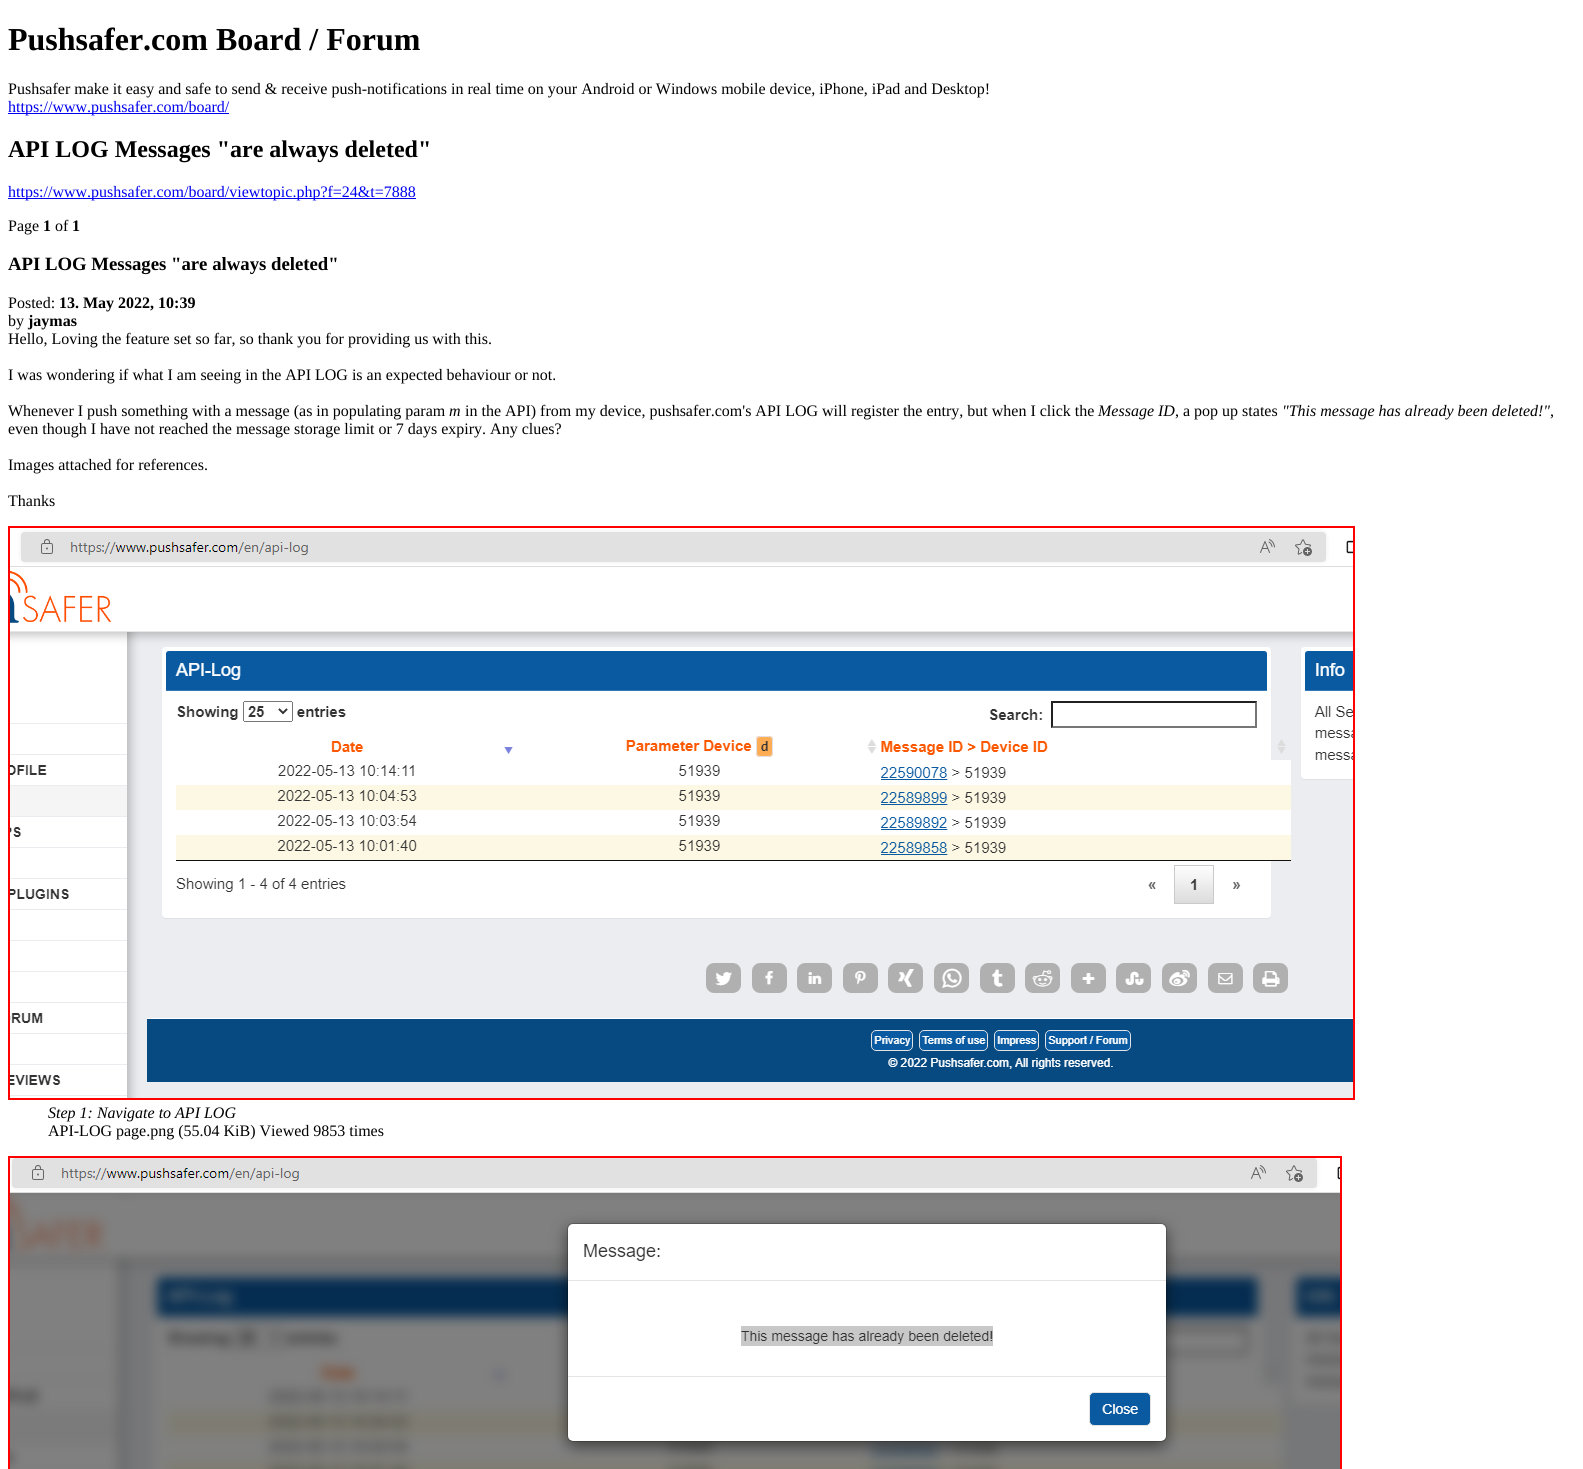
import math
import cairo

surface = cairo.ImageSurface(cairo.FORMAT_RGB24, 1583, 1469)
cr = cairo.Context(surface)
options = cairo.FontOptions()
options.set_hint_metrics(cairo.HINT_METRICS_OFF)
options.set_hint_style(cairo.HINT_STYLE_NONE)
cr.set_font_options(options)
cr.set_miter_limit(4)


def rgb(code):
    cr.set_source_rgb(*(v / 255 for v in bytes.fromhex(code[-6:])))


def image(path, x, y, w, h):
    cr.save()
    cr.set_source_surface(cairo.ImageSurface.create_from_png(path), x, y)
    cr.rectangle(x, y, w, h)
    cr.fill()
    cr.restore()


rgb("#ffffff")
cr.paint()
rgb("#0000ee")
cr.rectangle(8, 113, 221, 1)
cr.fill()
cr.rectangle(8, 198, 408, 1)
cr.fill()
image("img/1.png", 8, 526, 1347, 574)
image("img/2.png", 8, 1156, 1334, 313)
cr.select_font_face("Liberation Serif", cairo.FONT_SLANT_NORMAL, cairo.FONT_WEIGHT_BOLD)
cr.set_font_size(32)
rgb("#000000")
cr.move_to(8, 50)
cr.show_text("Pushsafer.com Board / Forum")
cr.select_font_face("Liberation Serif")
cr.set_font_size(16)
cr.move_to(8, 94)
cr.show_text("Pushsafer make it easy and safe to send & receive push-notifications in real time on your Android or Windows mobile device, iPhone, iPad and Desktop!")
rgb("#0000ee")
cr.move_to(8, 112)
cr.show_text("https://www.pushsafer.com/board/")
cr.select_font_face("Liberation Serif", cairo.FONT_SLANT_NORMAL, cairo.FONT_WEIGHT_BOLD)
cr.set_font_size(24)
rgb("#000000")
cr.move_to(8, 157)
cr.show_text("API LOG Messages \"are always deleted\"")
cr.select_font_face("Liberation Serif")
cr.set_font_size(16)
rgb("#0000ee")
cr.move_to(8, 197)
cr.show_text("https://www.pushsafer.com/board/viewtopic.php?f=24&t=7888")
rgb("#000000")
cr.move_to(8, 231)
cr.show_text("Page")
cr.select_font_face("Liberation Serif", cairo.FONT_SLANT_NORMAL, cairo.FONT_WEIGHT_BOLD)
cr.move_to(43, 231)
cr.show_text("1")
cr.select_font_face("Liberation Serif")
cr.move_to(55, 231)
cr.show_text("of")
cr.select_font_face("Liberation Serif", cairo.FONT_SLANT_NORMAL, cairo.FONT_WEIGHT_BOLD)
cr.move_to(72, 231)
cr.show_text("1")
cr.set_font_size(18.75)
cr.move_to(8, 270)
cr.show_text("API LOG Messages \"are always deleted\"")
cr.select_font_face("Liberation Serif")
cr.set_font_size(16)
cr.move_to(8, 308)
cr.show_text("Posted:")
cr.select_font_face("Liberation Serif", cairo.FONT_SLANT_NORMAL, cairo.FONT_WEIGHT_BOLD)
cr.move_to(59, 308)
cr.show_text("13. May 2022, 10:39")
cr.select_font_face("Liberation Serif")
cr.move_to(8, 326)
cr.show_text("by")
cr.select_font_face("Liberation Serif", cairo.FONT_SLANT_NORMAL, cairo.FONT_WEIGHT_BOLD)
cr.move_to(28, 326)
cr.show_text("jaymas")
cr.select_font_face("Liberation Serif")
for x, y, s in [
    (8, 344, "Hello, Loving the feature set so far, so thank you for providing us with this."),
    (8, 380, "I was wondering if what I am seeing in the API LOG is an expected behaviour or not."),
    (8, 416, "Whenever I push something with a message (as in populating param"),
]:
    cr.move_to(x, y)
    cr.show_text(s)
cr.select_font_face("Liberation Serif", cairo.FONT_SLANT_ITALIC)
cr.move_to(449, 416)
cr.show_text("m")
cr.select_font_face("Liberation Serif")
cr.move_to(465, 416)
cr.show_text("in the API) from my device, pushsafer.com's API LOG will register the entry, but when I click the")
cr.select_font_face("Liberation Serif", cairo.FONT_SLANT_ITALIC)
cr.move_to(1098, 416)
cr.show_text("Message ID")
cr.select_font_face("Liberation Serif")
cr.move_to(1175, 416)
cr.show_text(", a pop up states")
cr.select_font_face("Liberation Serif", cairo.FONT_SLANT_ITALIC)
cr.move_to(1282, 416)
cr.show_text("\"This message has already been deleted!\"")
cr.select_font_face("Liberation Serif")
for x, y, s in [
    (1550, 416, ","),
    (8, 434, "even though I have not reached the message storage limit or 7 days expiry. Any clues?"),
    (8, 470, "Images attached for references."),
    (8, 506, "Thanks"),
]:
    cr.move_to(x, y)
    cr.show_text(s)
cr.select_font_face("Liberation Serif", cairo.FONT_SLANT_ITALIC)
cr.move_to(48, 1118)
cr.show_text("Step 1: Navigate to API LOG")
cr.select_font_face("Liberation Serif")
cr.move_to(48, 1136)
cr.show_text("API-LOG page.png (55.04 KiB) Viewed 9853 times")
surface.write_to_png("page.png")
